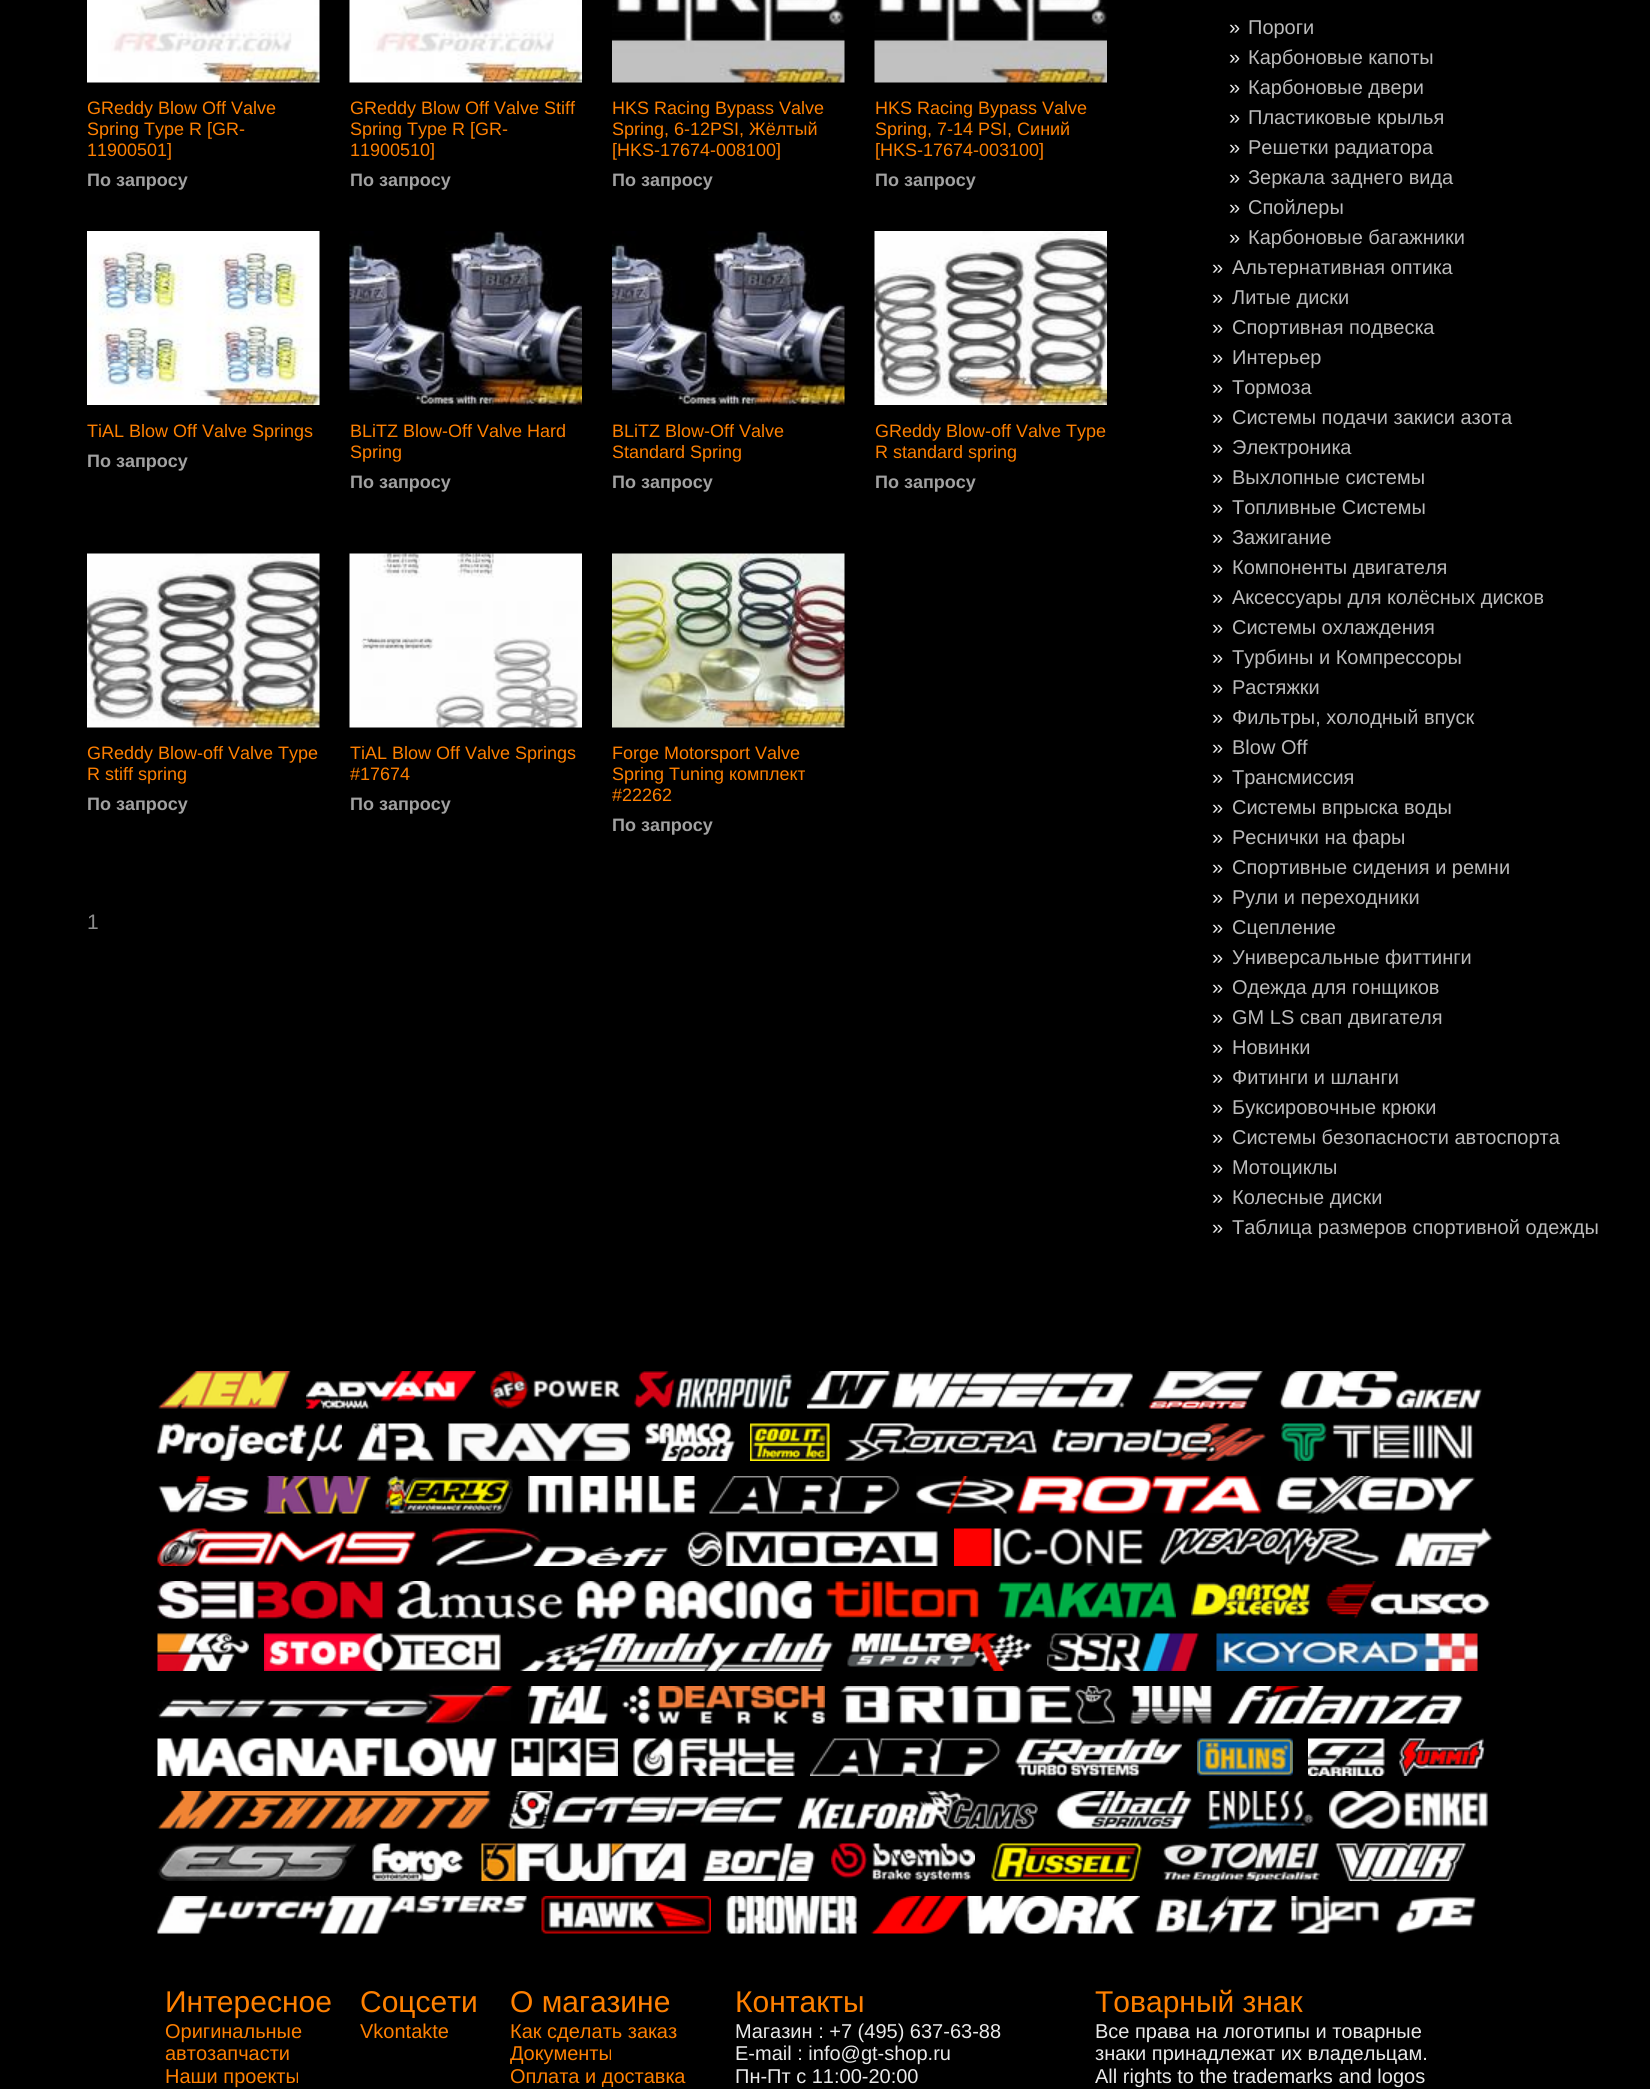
import math
import cairo

surface = cairo.ImageSurface(cairo.FORMAT_RGB24, 1650, 2089)
cr = cairo.Context(surface)
options = cairo.FontOptions()
options.set_hint_metrics(cairo.HINT_METRICS_OFF)
options.set_hint_style(cairo.HINT_STYLE_NONE)
cr.set_font_options(options)
cr.set_miter_limit(4)


def rgb(code):
    cr.set_source_rgb(*(v / 255 for v in bytes.fromhex(code[-6:])))


def image(path, x, y, w, h):
    cr.save()
    cr.set_source_surface(cairo.ImageSurface.create_from_png(path), x, y)
    cr.rectangle(x, y, w, h)
    cr.fill()
    cr.restore()


rgb("#000000")
cr.paint()
image("img/1.png", 87, 0, 233, 83)
image("img/2.png", 349, 0, 233, 83)
image("img/3.png", 612, 0, 233, 83)
image("img/4.png", 874, 0, 233, 83)
image("img/5.png", 87, 231, 233, 174)
image("img/6.png", 349, 231, 233, 174)
image("img/7.png", 612, 231, 233, 174)
image("img/8.png", 874, 231, 233, 174)
image("img/9.png", 87, 553, 233, 175)
image("img/10.png", 349, 553, 233, 175)
image("img/11.png", 612, 553, 233, 175)
image("img/12.png", 158, 1371, 133, 38)
image("img/13.png", 306, 1371, 170, 38)
image("img/14.png", 490, 1371, 130, 38)
image("img/15.png", 634, 1371, 158, 38)
image("img/16.png", 807, 1371, 326, 38)
image("img/17.png", 1148, 1371, 115, 38)
image("img/18.png", 1279, 1371, 203, 38)
image("img/19.png", 157, 1423, 185, 38)
image("img/20.png", 357, 1423, 77, 38)
image("img/21.png", 448, 1423, 182, 38)
image("img/22.png", 645, 1423, 90, 38)
image("img/23.png", 750, 1423, 80, 38)
image("img/24.png", 844, 1423, 193, 38)
image("img/25.png", 1051, 1423, 215, 38)
image("img/26.png", 1281, 1423, 192, 38)
image("img/27.png", 158, 1476, 91, 37)
image("img/28.png", 264, 1476, 107, 38)
image("img/29.png", 385, 1476, 128, 38)
image("img/30.png", 528, 1476, 167, 38)
image("img/31.png", 709, 1476, 191, 38)
image("img/32.png", 916, 1476, 346, 38)
image("img/33.png", 1276, 1476, 199, 38)
image("img/34.png", 157, 1528, 260, 38)
image("img/35.png", 432, 1528, 236, 38)
image("img/36.png", 686, 1531, 252, 35)
image("img/37.png", 954, 1528, 190, 38)
image("img/38.png", 1159, 1528, 220, 38)
image("img/39.png", 1395, 1528, 98, 38)
image("img/40.png", 157, 1581, 226, 38)
image("img/41.png", 397, 1581, 166, 38)
image("img/42.png", 577, 1581, 235, 38)
image("img/43.png", 826, 1581, 153, 37)
image("img/44.png", 997, 1582, 179, 37)
image("img/45.png", 1191, 1581, 120, 38)
image("img/46.png", 1326, 1581, 164, 38)
image("img/47.png", 157, 1633, 92, 38)
image("img/48.png", 264, 1633, 237, 38)
image("img/49.png", 520, 1633, 313, 38)
image("img/50.png", 847, 1633, 185, 38)
image("img/51.png", 1047, 1633, 152, 38)
image("img/52.png", 1216, 1633, 262, 38)
image("img/53.png", 157, 1686, 356, 38)
image("img/54.png", 528, 1686, 80, 38)
image("img/55.png", 622, 1686, 203, 38)
image("img/56.png", 840, 1686, 275, 38)
image("img/57.png", 1129, 1686, 83, 38)
image("img/58.png", 1227, 1686, 236, 38)
image("img/59.png", 157, 1738, 340, 38)
image("img/60.png", 511, 1738, 107, 38)
image("img/61.png", 633, 1738, 162, 38)
image("img/62.png", 810, 1738, 191, 38)
image("img/63.png", 1015, 1738, 167, 38)
image("img/64.png", 1197, 1738, 96, 38)
image("img/65.png", 1308, 1738, 77, 38)
image("img/66.png", 1399, 1738, 86, 38)
image("img/67.png", 157, 1791, 334, 38)
image("img/68.png", 508, 1791, 275, 38)
image("img/69.png", 798, 1791, 240, 38)
image("img/70.png", 1055, 1791, 137, 38)
image("img/71.png", 1207, 1791, 107, 38)
image("img/72.png", 1329, 1791, 159, 38)
image("img/73.png", 157, 1843, 200, 38)
image("img/74.png", 372, 1843, 92, 38)
image("img/75.png", 481, 1843, 206, 38)
image("img/76.png", 702, 1843, 113, 38)
image("img/77.png", 831, 1843, 144, 38)
image("img/78.png", 991, 1843, 151, 38)
image("img/79.png", 1163, 1843, 157, 38)
image("img/80.png", 1335, 1843, 131, 38)
image("img/81.png", 157, 1896, 370, 38)
image("img/82.png", 541, 1896, 170, 38)
image("img/83.png", 726, 1896, 131, 38)
image("img/84.png", 871, 1896, 269, 38)
image("img/85.png", 1155, 1896, 122, 38)
image("img/86.png", 1291, 1896, 88, 38)
image("img/87.png", 1395, 1896, 82, 38)
cr.select_font_face("Liberation Sans")
cr.set_font_size(18)
rgb("#ff8000")
for x, y, s in [
    (87, 114, "GReddy Blow Off Valve"),
    (87, 135, "Spring Type R [GR-"),
    (87, 156, "11900501]"),
]:
    cr.move_to(x, y)
    cr.show_text(s)
cr.select_font_face("Liberation Sans", cairo.FONT_SLANT_NORMAL, cairo.FONT_WEIGHT_BOLD)
rgb("#a1a1a1")
cr.move_to(87, 186)
cr.show_text("По запросу")
cr.select_font_face("Liberation Sans")
rgb("#ff8000")
for x, y, s in [
    (350, 114, "GReddy Blow Off Valve Stiff"),
    (350, 135, "Spring Type R [GR-"),
    (350, 156, "11900510]"),
]:
    cr.move_to(x, y)
    cr.show_text(s)
cr.select_font_face("Liberation Sans", cairo.FONT_SLANT_NORMAL, cairo.FONT_WEIGHT_BOLD)
rgb("#a1a1a1")
cr.move_to(350, 186)
cr.show_text("По запросу")
cr.select_font_face("Liberation Sans")
rgb("#ff8000")
for x, y, s in [
    (612, 114, "HKS Racing Bypass Valve"),
    (612, 135, "Spring, 6-12PSI, Жёлтый"),
    (612, 156, "[HKS-17674-008100]"),
]:
    cr.move_to(x, y)
    cr.show_text(s)
cr.select_font_face("Liberation Sans", cairo.FONT_SLANT_NORMAL, cairo.FONT_WEIGHT_BOLD)
rgb("#a1a1a1")
cr.move_to(612, 186)
cr.show_text("По запросу")
cr.select_font_face("Liberation Sans")
rgb("#ff8000")
for x, y, s in [
    (875, 114, "HKS Racing Bypass Valve"),
    (875, 135, "Spring, 7-14 PSI, Синий"),
    (875, 156, "[HKS-17674-003100]"),
]:
    cr.move_to(x, y)
    cr.show_text(s)
cr.select_font_face("Liberation Sans", cairo.FONT_SLANT_NORMAL, cairo.FONT_WEIGHT_BOLD)
rgb("#a1a1a1")
cr.move_to(875, 186)
cr.show_text("По запросу")
cr.select_font_face("Liberation Sans")
rgb("#ff8000")
cr.move_to(87, 437)
cr.show_text("TiAL Blow Off Valve Springs")
cr.select_font_face("Liberation Sans", cairo.FONT_SLANT_NORMAL, cairo.FONT_WEIGHT_BOLD)
rgb("#a1a1a1")
cr.move_to(87, 467)
cr.show_text("По запросу")
cr.select_font_face("Liberation Sans")
rgb("#ff8000")
cr.move_to(350, 437)
cr.show_text("BLiTZ Blow-Off Valve Hard")
cr.move_to(350, 458)
cr.show_text("Spring")
cr.select_font_face("Liberation Sans", cairo.FONT_SLANT_NORMAL, cairo.FONT_WEIGHT_BOLD)
rgb("#a1a1a1")
cr.move_to(350, 488)
cr.show_text("По запросу")
cr.select_font_face("Liberation Sans")
rgb("#ff8000")
cr.move_to(612, 437)
cr.show_text("BLiTZ Blow-Off Valve")
cr.move_to(612, 458)
cr.show_text("Standard Spring")
cr.select_font_face("Liberation Sans", cairo.FONT_SLANT_NORMAL, cairo.FONT_WEIGHT_BOLD)
rgb("#a1a1a1")
cr.move_to(612, 488)
cr.show_text("По запросу")
cr.select_font_face("Liberation Sans")
rgb("#ff8000")
cr.move_to(875, 437)
cr.show_text("GReddy Blow-off Valve Type")
cr.move_to(875, 458)
cr.show_text("R standard spring")
cr.select_font_face("Liberation Sans", cairo.FONT_SLANT_NORMAL, cairo.FONT_WEIGHT_BOLD)
rgb("#a1a1a1")
cr.move_to(875, 488)
cr.show_text("По запросу")
cr.select_font_face("Liberation Sans")
rgb("#ff8000")
cr.move_to(87, 759)
cr.show_text("GReddy Blow-off Valve Type")
cr.move_to(87, 780)
cr.show_text("R stiff spring")
cr.select_font_face("Liberation Sans", cairo.FONT_SLANT_NORMAL, cairo.FONT_WEIGHT_BOLD)
rgb("#a1a1a1")
cr.move_to(87, 810)
cr.show_text("По запросу")
cr.select_font_face("Liberation Sans")
rgb("#ff8000")
cr.move_to(350, 759)
cr.show_text("TiAL Blow Off Valve Springs")
cr.move_to(350, 780)
cr.show_text("#17674")
cr.select_font_face("Liberation Sans", cairo.FONT_SLANT_NORMAL, cairo.FONT_WEIGHT_BOLD)
rgb("#a1a1a1")
cr.move_to(350, 810)
cr.show_text("По запросу")
cr.select_font_face("Liberation Sans")
rgb("#ff8000")
for x, y, s in [
    (612, 759, "Forge Motorsport Valve"),
    (612, 780, "Spring Tuning комплект"),
    (612, 801, "#22262"),
]:
    cr.move_to(x, y)
    cr.show_text(s)
cr.select_font_face("Liberation Sans", cairo.FONT_SLANT_NORMAL, cairo.FONT_WEIGHT_BOLD)
rgb("#a1a1a1")
cr.move_to(612, 831)
cr.show_text("По запросу")
cr.select_font_face("Liberation Sans")
cr.set_font_size(21)
rgb("#8d8d8d")
cr.move_to(87, 929)
cr.show_text("1")
cr.set_font_size(20)
rgb("#eaeaea")
cr.move_to(1229, 34)
cr.show_text("»")
rgb("#bbbbbb")
cr.move_to(1248, 34)
cr.show_text("Пороги")
rgb("#eaeaea")
cr.move_to(1229, 64)
cr.show_text("»")
rgb("#bbbbbb")
cr.move_to(1248, 64)
cr.show_text("Карбоновые капоты")
rgb("#eaeaea")
cr.move_to(1229, 94)
cr.show_text("»")
rgb("#bbbbbb")
cr.move_to(1248, 94)
cr.show_text("Карбоновые двери")
rgb("#eaeaea")
cr.move_to(1229, 124)
cr.show_text("»")
rgb("#bbbbbb")
cr.move_to(1248, 124)
cr.show_text("Пластиковые крылья")
rgb("#eaeaea")
cr.move_to(1229, 154)
cr.show_text("»")
rgb("#bbbbbb")
cr.move_to(1248, 154)
cr.show_text("Решетки радиатора")
rgb("#eaeaea")
cr.move_to(1229, 184)
cr.show_text("»")
rgb("#bbbbbb")
cr.move_to(1248, 184)
cr.show_text("Зеркала заднего вида")
rgb("#eaeaea")
cr.move_to(1229, 214)
cr.show_text("»")
rgb("#bbbbbb")
cr.move_to(1248, 214)
cr.show_text("Спойлеры")
rgb("#eaeaea")
cr.move_to(1229, 244)
cr.show_text("»")
rgb("#bbbbbb")
cr.move_to(1248, 244)
cr.show_text("Карбоновые багажники")
rgb("#eaeaea")
cr.move_to(1212, 274)
cr.show_text("»")
rgb("#bbbbbb")
cr.move_to(1232, 274)
cr.show_text("Альтернативная оптика")
rgb("#eaeaea")
cr.move_to(1212, 304)
cr.show_text("»")
rgb("#bbbbbb")
cr.move_to(1232, 304)
cr.show_text("Литые диски")
rgb("#eaeaea")
cr.move_to(1212, 334)
cr.show_text("»")
rgb("#bbbbbb")
cr.move_to(1232, 334)
cr.show_text("Спортивная подвеска")
rgb("#eaeaea")
cr.move_to(1212, 364)
cr.show_text("»")
rgb("#bbbbbb")
cr.move_to(1232, 364)
cr.show_text("Интерьер")
rgb("#eaeaea")
cr.move_to(1212, 394)
cr.show_text("»")
rgb("#bbbbbb")
cr.move_to(1232, 394)
cr.show_text("Тормоза")
rgb("#eaeaea")
cr.move_to(1212, 424)
cr.show_text("»")
rgb("#bbbbbb")
cr.move_to(1232, 424)
cr.show_text("Системы подачи закиси азота")
rgb("#eaeaea")
cr.move_to(1212, 454)
cr.show_text("»")
rgb("#bbbbbb")
cr.move_to(1232, 454)
cr.show_text("Электроника")
rgb("#eaeaea")
cr.move_to(1212, 484)
cr.show_text("»")
rgb("#bbbbbb")
cr.move_to(1232, 484)
cr.show_text("Выхлопные системы")
rgb("#eaeaea")
cr.move_to(1212, 514)
cr.show_text("»")
rgb("#bbbbbb")
cr.move_to(1232, 514)
cr.show_text("Топливные Системы")
rgb("#eaeaea")
cr.move_to(1212, 544)
cr.show_text("»")
rgb("#bbbbbb")
cr.move_to(1232, 544)
cr.show_text("Зажигание")
rgb("#eaeaea")
cr.move_to(1212, 574)
cr.show_text("»")
rgb("#bbbbbb")
cr.move_to(1232, 574)
cr.show_text("Компоненты двигателя")
rgb("#eaeaea")
cr.move_to(1212, 604)
cr.show_text("»")
rgb("#bbbbbb")
cr.move_to(1232, 604)
cr.show_text("Аксессуары для колёсных дисков")
rgb("#eaeaea")
cr.move_to(1212, 634)
cr.show_text("»")
rgb("#bbbbbb")
cr.move_to(1232, 634)
cr.show_text("Системы охлаждения")
rgb("#eaeaea")
cr.move_to(1212, 664)
cr.show_text("»")
rgb("#bbbbbb")
cr.move_to(1232, 664)
cr.show_text("Турбины и Компрессоры")
rgb("#eaeaea")
cr.move_to(1212, 694)
cr.show_text("»")
rgb("#bbbbbb")
cr.move_to(1232, 694)
cr.show_text("Растяжки")
rgb("#eaeaea")
cr.move_to(1212, 724)
cr.show_text("»")
rgb("#bbbbbb")
cr.move_to(1232, 724)
cr.show_text("Фильтры, холодный впуск")
rgb("#eaeaea")
cr.move_to(1212, 754)
cr.show_text("»")
rgb("#bbbbbb")
cr.move_to(1232, 754)
cr.show_text("Blow Off")
rgb("#eaeaea")
cr.move_to(1212, 784)
cr.show_text("»")
rgb("#bbbbbb")
cr.move_to(1232, 784)
cr.show_text("Трансмиссия")
rgb("#eaeaea")
cr.move_to(1212, 814)
cr.show_text("»")
rgb("#bbbbbb")
cr.move_to(1232, 814)
cr.show_text("Системы впрыска воды")
rgb("#eaeaea")
cr.move_to(1212, 844)
cr.show_text("»")
rgb("#bbbbbb")
cr.move_to(1232, 844)
cr.show_text("Реснички на фары")
rgb("#eaeaea")
cr.move_to(1212, 874)
cr.show_text("»")
rgb("#bbbbbb")
cr.move_to(1232, 874)
cr.show_text("Спортивные сидения и ремни")
rgb("#eaeaea")
cr.move_to(1212, 904)
cr.show_text("»")
rgb("#bbbbbb")
cr.move_to(1232, 904)
cr.show_text("Рули и переходники")
rgb("#eaeaea")
cr.move_to(1212, 934)
cr.show_text("»")
rgb("#bbbbbb")
cr.move_to(1232, 934)
cr.show_text("Сцепление")
rgb("#eaeaea")
cr.move_to(1212, 964)
cr.show_text("»")
rgb("#bbbbbb")
cr.move_to(1232, 964)
cr.show_text("Универсальные фиттинги")
rgb("#eaeaea")
cr.move_to(1212, 994)
cr.show_text("»")
rgb("#bbbbbb")
cr.move_to(1232, 994)
cr.show_text("Одежда для гонщиков")
rgb("#eaeaea")
cr.move_to(1212, 1024)
cr.show_text("»")
rgb("#bbbbbb")
cr.move_to(1232, 1024)
cr.show_text("GM LS свап двигателя")
rgb("#eaeaea")
cr.move_to(1212, 1054)
cr.show_text("»")
rgb("#bbbbbb")
cr.move_to(1232, 1054)
cr.show_text("Новинки")
rgb("#eaeaea")
cr.move_to(1212, 1084)
cr.show_text("»")
rgb("#bbbbbb")
cr.move_to(1232, 1084)
cr.show_text("Фитинги и шланги")
rgb("#eaeaea")
cr.move_to(1212, 1114)
cr.show_text("»")
rgb("#bbbbbb")
cr.move_to(1232, 1114)
cr.show_text("Буксировочные крюки")
rgb("#eaeaea")
cr.move_to(1212, 1144)
cr.show_text("»")
rgb("#bbbbbb")
cr.move_to(1232, 1144)
cr.show_text("Системы безопасности автоспорта")
rgb("#eaeaea")
cr.move_to(1212, 1174)
cr.show_text("»")
rgb("#bbbbbb")
cr.move_to(1232, 1174)
cr.show_text("Мотоциклы")
rgb("#eaeaea")
cr.move_to(1212, 1204)
cr.show_text("»")
rgb("#bbbbbb")
cr.move_to(1232, 1204)
cr.show_text("Колесные диски")
rgb("#eaeaea")
cr.move_to(1212, 1234)
cr.show_text("»")
rgb("#bbbbbb")
cr.move_to(1232, 1234)
cr.show_text("Таблица размеров спортивной одежды")
cr.set_font_size(30)
rgb("#ff8000")
cr.move_to(165, 2012)
cr.show_text("Интересное")
cr.set_font_size(20)
for x, y, s in [
    (165, 2038, "Оригинальные"),
    (165, 2060, "автозапчасти"),
    (165, 2083, "Наши проекты"),
]:
    cr.move_to(x, y)
    cr.show_text(s)
cr.set_font_size(30)
cr.move_to(360, 2012)
cr.show_text("Соцсети")
cr.set_font_size(20)
cr.move_to(360, 2038)
cr.show_text("Vkontakte")
cr.set_font_size(30)
cr.move_to(510, 2012)
cr.show_text("О магазине")
cr.set_font_size(20)
for x, y, s in [
    (510, 2038, "Как сделать заказ"),
    (510, 2060, "Документы"),
    (510, 2083, "Оплата и доставка"),
]:
    cr.move_to(x, y)
    cr.show_text(s)
cr.set_font_size(30)
cr.move_to(735, 2012)
cr.show_text("Контакты")
cr.set_font_size(20)
rgb("#eaeaea")
for x, y, s in [
    (735, 2038, "Магазин : +7 (495) 637-63-88"),
    (735, 2060, "E-mail : info@gt-shop.ru"),
    (735, 2083, "Пн-Пт с 11:00-20:00"),
]:
    cr.move_to(x, y)
    cr.show_text(s)
cr.set_font_size(30)
rgb("#ff8000")
cr.move_to(1095, 2012)
cr.show_text("Товарный знак")
cr.set_font_size(20)
rgb("#eaeaea")
for x, y, s in [
    (1095, 2038, "Все права на логотипы и товарные"),
    (1095, 2060, "знаки принадлежат их владельцам."),
    (1095, 2083, "All rights to the trademarks and logos"),
]:
    cr.move_to(x, y)
    cr.show_text(s)
surface.write_to_png("page.png")
